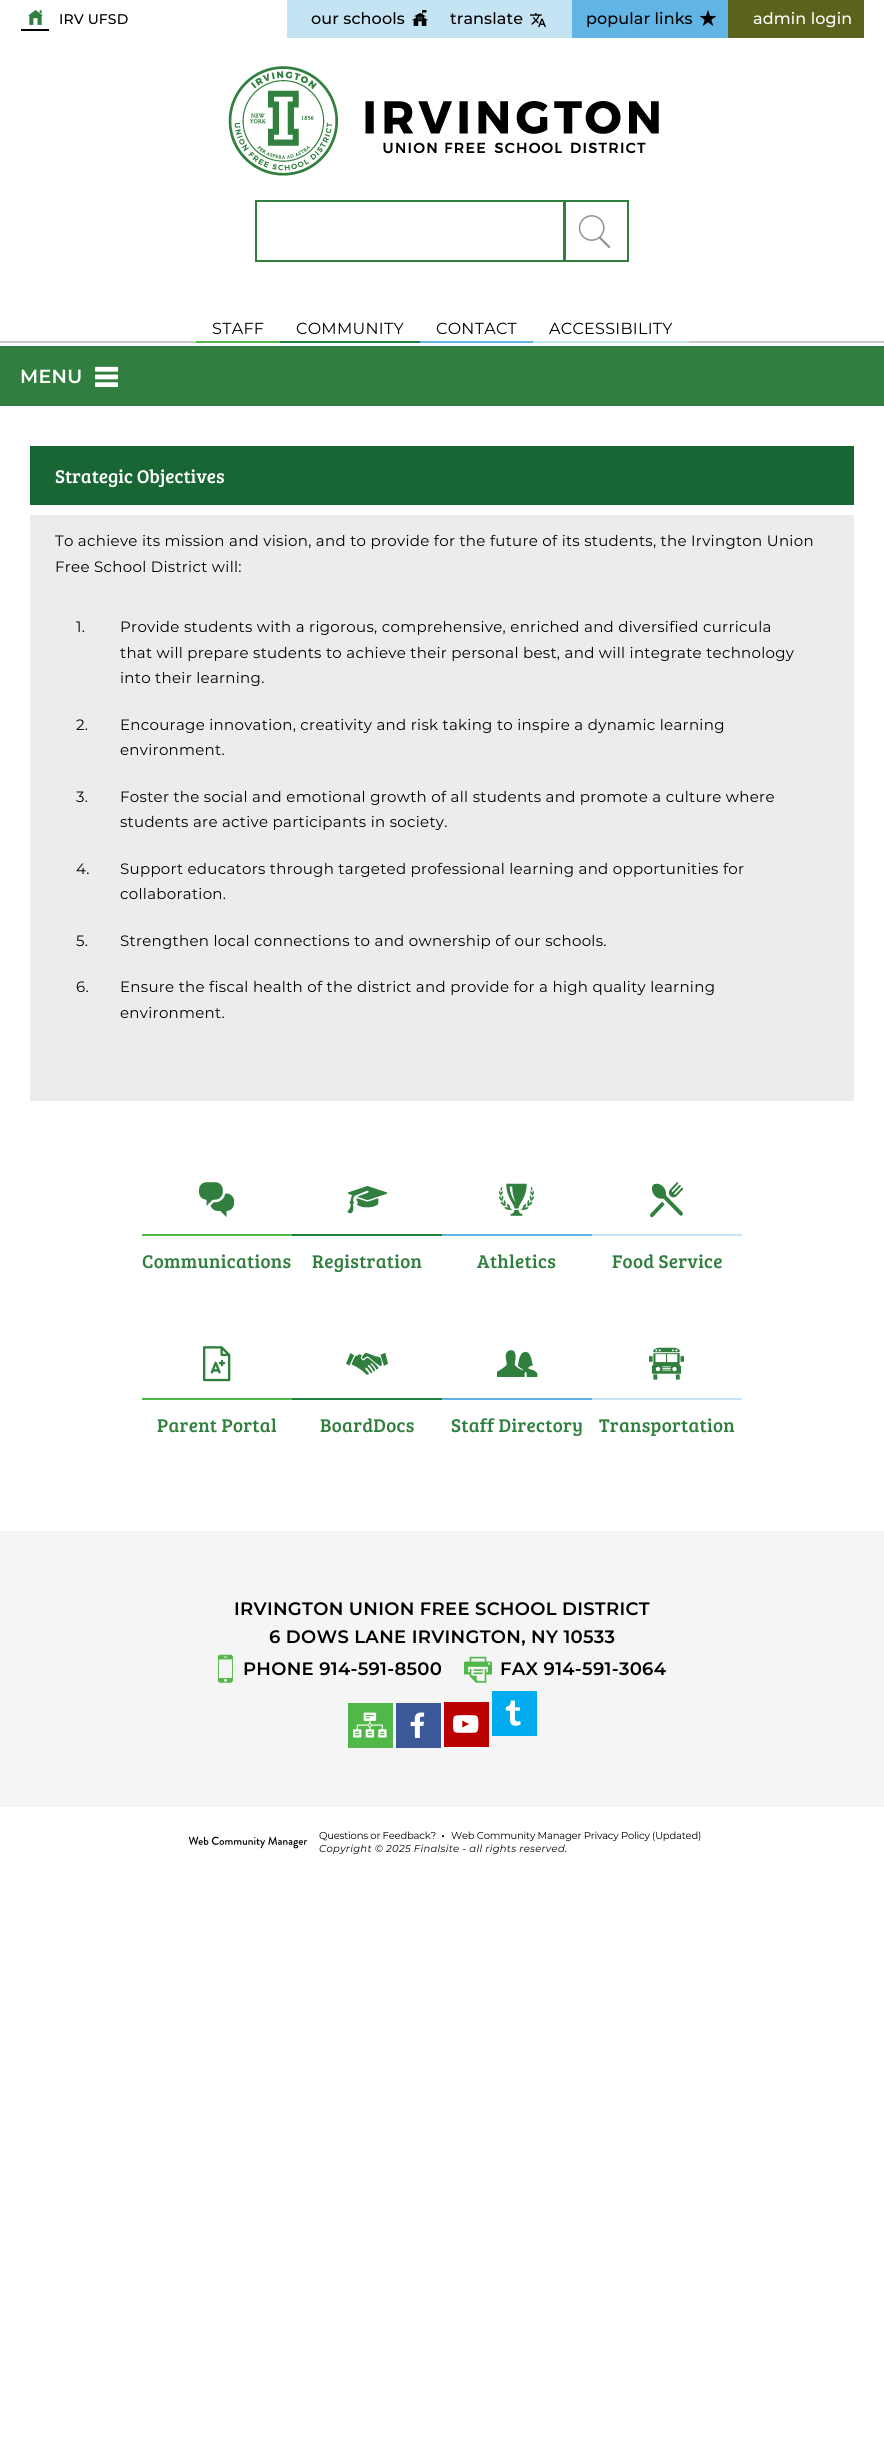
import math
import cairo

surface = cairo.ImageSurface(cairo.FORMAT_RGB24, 884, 2442)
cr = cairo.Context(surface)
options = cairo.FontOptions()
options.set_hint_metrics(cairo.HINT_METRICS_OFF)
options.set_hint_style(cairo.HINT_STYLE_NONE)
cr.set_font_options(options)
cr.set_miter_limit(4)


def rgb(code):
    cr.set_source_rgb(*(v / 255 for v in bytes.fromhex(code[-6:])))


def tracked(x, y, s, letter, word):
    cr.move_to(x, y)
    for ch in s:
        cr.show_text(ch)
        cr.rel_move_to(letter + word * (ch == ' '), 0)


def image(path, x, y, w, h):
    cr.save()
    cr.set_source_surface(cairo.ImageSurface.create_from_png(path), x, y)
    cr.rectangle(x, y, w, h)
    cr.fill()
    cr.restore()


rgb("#ffffff")
cr.paint()
image("img/1.png", 28, 10, 15, 15)
rgb("#000000")
cr.rectangle(21, 29, 28, 2)
cr.fill()
rgb("#c5e4f3")
cr.rectangle(287, 0, 285, 38)
cr.fill()
image("img/2.png", 412, 10, 16, 16)
image("img/3.png", 530, 12, 16, 16)
rgb("#61b4e4")
cr.rectangle(572, 0, 156, 38)
cr.fill()
image("img/4.png", 700, 10, 16, 16)
rgb("#5a621c")
cr.rectangle(728, 0, 136, 38)
cr.fill()
image("img/5.png", 228, 66, 431, 110)
cr.rectangle(256, 201, 372, 60)
rgb("#307f3e")
cr.stroke()
cr.rectangle(563, 202, 3, 58)
cr.fill()
image("img/6.png", 578, 215, 33, 33)
for x, y, w, h, color in [
    (0, 341, 884, 2, "#c9c9c9"),
    (196, 341, 84, 2, "#50b748"),
    (280, 341, 140, 2, "#1e8140"),
    (420, 341, 113, 2, "#61b4e4"),
    (533, 341, 156, 2, "#c5e4f3"),
    (0, 346, 884, 60, "#307f3e"),
]:
    rgb(color)
    cr.rectangle(x, y, w, h)
    cr.fill()
image("img/7.png", 95, 366, 23, 21)
rgb("#186633")
cr.rectangle(30, 446, 824, 59)
cr.fill()
rgb("#ececec")
cr.rectangle(30, 515, 824, 586)
cr.fill()
image("img/8.png", 198, 1182, 37, 35)
rgb("#50b748")
cr.rectangle(142, 1234, 150, 2)
cr.fill()
image("img/9.png", 347, 1186, 41, 28)
rgb("#1e8140")
cr.rectangle(292, 1234, 150, 2)
cr.fill()
image("img/10.png", 499, 1183, 35, 33)
rgb("#61b4e4")
cr.rectangle(442, 1234, 150, 2)
cr.fill()
image("img/11.png", 650, 1182, 34, 36)
rgb("#c5e4f3")
cr.rectangle(592, 1234, 150, 2)
cr.fill()
image("img/12.png", 203, 1346, 28, 36)
rgb("#50b748")
cr.rectangle(142, 1398, 150, 2)
cr.fill()
image("img/13.png", 346, 1352, 42, 23)
rgb("#1e8140")
cr.rectangle(292, 1398, 150, 2)
cr.fill()
image("img/14.png", 497, 1350, 41, 27)
rgb("#61b4e4")
cr.rectangle(442, 1398, 150, 2)
cr.fill()
image("img/15.png", 649, 1347, 35, 33)
rgb("#c5e4f3")
cr.rectangle(592, 1398, 150, 2)
cr.fill()
rgb("#f5f5f5")
cr.rectangle(0, 1531, 884, 276)
cr.fill()
image("img/16.png", 218, 1654, 15, 29)
image("img/17.png", 464, 1656, 28, 27)
rgb("#50b748")
cr.rectangle(348, 1703, 45, 45)
cr.fill()
image("img/18.png", 353, 1712, 34, 26)
rgb("#3b5998")
cr.rectangle(396, 1703, 45, 45)
cr.fill()
image("img/19.png", 410, 1712, 15, 26)
rgb("#bb0000")
cr.rectangle(444, 1702, 45, 45)
cr.fill()
image("img/20.png", 453, 1715, 26, 18)
rgb("#00aced")
cr.rectangle(492, 1691, 45, 45)
cr.fill()
image("img/21.png", 505, 1700, 16, 26)
image("img/22.png", 188, 1836, 120, 13)
cr.select_font_face("Montserrat Medium")
cr.set_font_size(14)
rgb("#000000")
tracked(59, 24, "IRV UFSD", 0.1, 0)
cr.set_font_size(16)
for x, y, s in [
    (311, 24, "our schools"),
    (450, 24, "translate"),
    (586, 24, "popular links"),
]:
    tracked(x, y, s, 0.1, 0)
rgb("#ffffff")
tracked(753, 24, "admin login", 0.1, 0)
cr.select_font_face("Montserrat")
rgb("#000000")
for x, y, s in [
    (212, 334, "STAFF"),
    (296, 334, "COMMUNITY"),
    (436, 334, "CONTACT"),
    (549, 334, "ACCESSIBILITY"),
]:
    tracked(x, y, s, 0.3, 0)
cr.select_font_face("Montserrat SemiBold")
cr.set_font_size(19)
rgb("#ffffff")
tracked(20, 383, "MENU", 0.3, 0)
cr.select_font_face("Bree Serif")
cr.move_to(55, 483)
cr.show_text("Strategic Objectives")
cr.select_font_face("Montserrat")
cr.set_font_size(15)
rgb("#000000")
for x, y, s in [
    (55, 546, "To achieve its mission and vision, and to provide for the future of its students, the Irvington Union"),
    (55, 572, "Free School District will:"),
    (76, 632, "1."),
    (120, 632, "Provide students with a rigorous, comprehensive, enriched and diversified curricula"),
    (120, 658, "that will prepare students to achieve their personal best, and will integrate technology"),
    (120, 683, "into their learning."),
    (76, 730, "2."),
    (120, 730, "Encourage innovation, creativity and risk taking to inspire a dynamic learning"),
    (120, 755, "environment."),
    (76, 802, "3."),
    (120, 802, "Foster the social and emotional growth of all students and promote a culture where"),
    (120, 827, "students are active participants in society."),
    (76, 874, "4."),
    (120, 874, "Support educators through targeted professional learning and opportunities for"),
    (120, 899, "collaboration."),
    (76, 946, "5."),
    (120, 946, "Strengthen local connections to and ownership of our schools."),
    (76, 992, "6."),
    (120, 992, "Ensure the fiscal health of the district and provide for a high quality learning"),
    (120, 1018, "environment."),
]:
    tracked(x, y, s, 0.3, 0)
cr.select_font_face("Bree Serif")
cr.set_font_size(19)
rgb("#307f3e")
for x, y, s in [
    (142, 1268, "Communications"),
    (312, 1268, "Registration"),
    (477, 1268, "Athletics"),
    (612, 1268, "Food Service"),
    (157, 1432, "Parent Portal"),
    (320, 1432, "BoardDocs"),
    (451, 1432, "Staff Directory"),
    (599, 1432, "Transportation"),
]:
    tracked(x, y, s, 0.3, 0)
cr.select_font_face("Montserrat SemiBold")
cr.set_font_size(18)
rgb("#000000")
for x, y, s in [
    (234, 1615, "IRVINGTON UNION FREE SCHOOL DISTRICT"),
    (269, 1643, "6 DOWS LANE IRVINGTON, NY 10533"),
    (243, 1675, "PHONE 914-591-8500"),
    (500, 1675, "FAX 914-591-3064"),
]:
    tracked(x, y, s, 0.3, 0)
cr.select_font_face("Montserrat")
cr.set_font_size(10)
tracked(319, 1839, "Questions or Feedback?", -0.2, 0)
cr.set_font_size(14)
tracked(441, 1840, "•", 0.3, 0)
cr.set_font_size(10)
tracked(451, 1839, "Web Community Manager Privacy Policy (Updated)", -0.2, 0)
cr.select_font_face("Montserrat", cairo.FONT_SLANT_ITALIC)
tracked(319, 1852, "Copyright © 2025 Finalsite - all rights reserved.", 0.3, 0)
surface.write_to_png("page.png")
